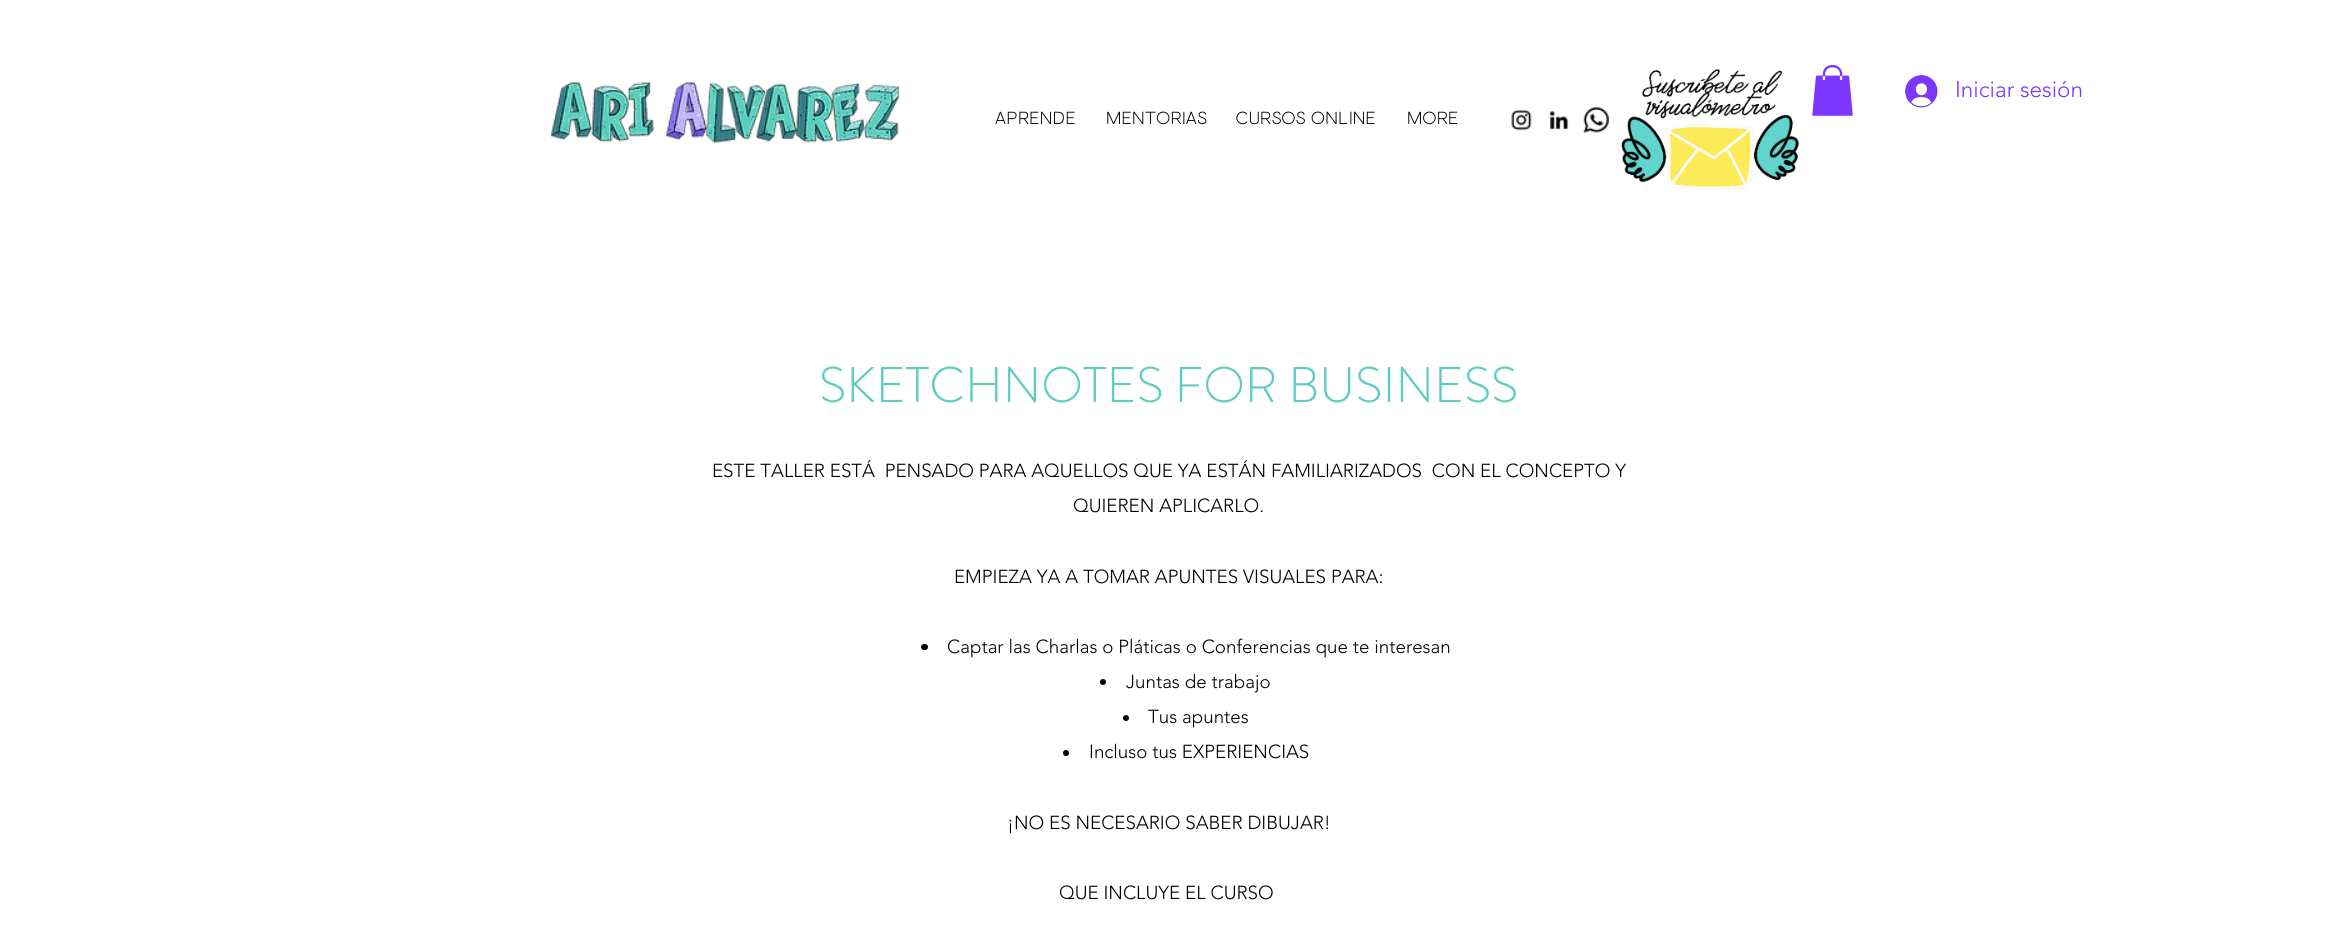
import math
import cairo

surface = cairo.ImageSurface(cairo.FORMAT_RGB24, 2337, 948)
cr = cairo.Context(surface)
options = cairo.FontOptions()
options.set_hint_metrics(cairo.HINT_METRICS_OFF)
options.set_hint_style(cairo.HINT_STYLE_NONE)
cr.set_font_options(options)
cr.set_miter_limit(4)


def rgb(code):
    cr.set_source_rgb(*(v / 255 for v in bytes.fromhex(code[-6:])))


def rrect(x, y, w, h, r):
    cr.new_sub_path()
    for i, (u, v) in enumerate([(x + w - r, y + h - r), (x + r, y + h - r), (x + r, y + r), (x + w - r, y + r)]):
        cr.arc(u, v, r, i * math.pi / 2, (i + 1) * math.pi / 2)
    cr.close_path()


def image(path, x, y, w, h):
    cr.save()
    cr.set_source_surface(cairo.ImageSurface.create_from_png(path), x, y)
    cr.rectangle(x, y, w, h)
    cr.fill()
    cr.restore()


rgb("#ffffff")
cr.paint()
image("img/1.png", 550, 82, 350, 61)
image("img/2.png", 1511, 109, 21, 22)
image("img/3.png", 1549, 111, 20, 19)
image("img/4.png", 1583, 107, 26, 26)
image("img/5.png", 1621, 68, 179, 122)
image("img/6.png", 1812, 65, 41, 51)
image("img/7.png", 1905, 75, 33, 33)
rgb("#000000")
rrect(921, 644, 7, 6, 3)
cr.fill()
cr.arc(1103, 682, 3, 0, 2 * math.pi)
cr.fill()
cr.arc(1126, 718, 3, 0, 2 * math.pi)
cr.fill()
cr.arc(1066, 753, 3, 0, 2 * math.pi)
cr.fill()
cr.select_font_face("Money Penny")
cr.set_font_size(17.5)
for x, y, s in [
    (995, 124, "Aprende"),
    (1106, 124, "Mentorias"),
    (1236, 124, "CURSOS ONLINE"),
    (1407, 124, "More"),
]:
    cr.move_to(x, y)
    cr.show_text(s)
cr.select_font_face("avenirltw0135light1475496 Light")
cr.set_font_size(22.5)
rgb("#7b36ff")
cr.move_to(1955, 97)
cr.show_text("Iniciar sesión")
cr.select_font_face("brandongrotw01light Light")
cr.set_font_size(50)
rgb("#5dcdbe")
cr.move_to(819, 402)
cr.show_text("SKETCHNOTES FOR BUSINESS")
cr.select_font_face("avenirltw0135light1475496 Light")
cr.set_font_size(18.75)
rgb("#000000")
for x, y, s in [
    (712, 477, "ESTE TALLER ESTÁ  PENSADO PARA AQUELLOS QUE YA ESTÁN FAMILIARIZADOS  CON EL CONCEPTO Y"),
    (1073, 512, "QUIEREN APLICARLO."),
    (954, 583, "EMPIEZA YA A TOMAR APUNTES VISUALES PARA:"),
    (947, 653, "Captar las Charlas o Pláticas o Conferencias que te interesan"),
    (1126, 688, "Juntas de trabajo"),
    (1148, 723, "Tus apuntes"),
    (1089, 758, "Incluso tus EXPERIENCIAS"),
    (1007, 829, "¡NO ES NECESARIO SABER DIBUJAR!"),
    (1059, 899, "QUE INCLUYE EL CURSO"),
]:
    cr.move_to(x, y)
    cr.show_text(s)
surface.write_to_png("page.png")
